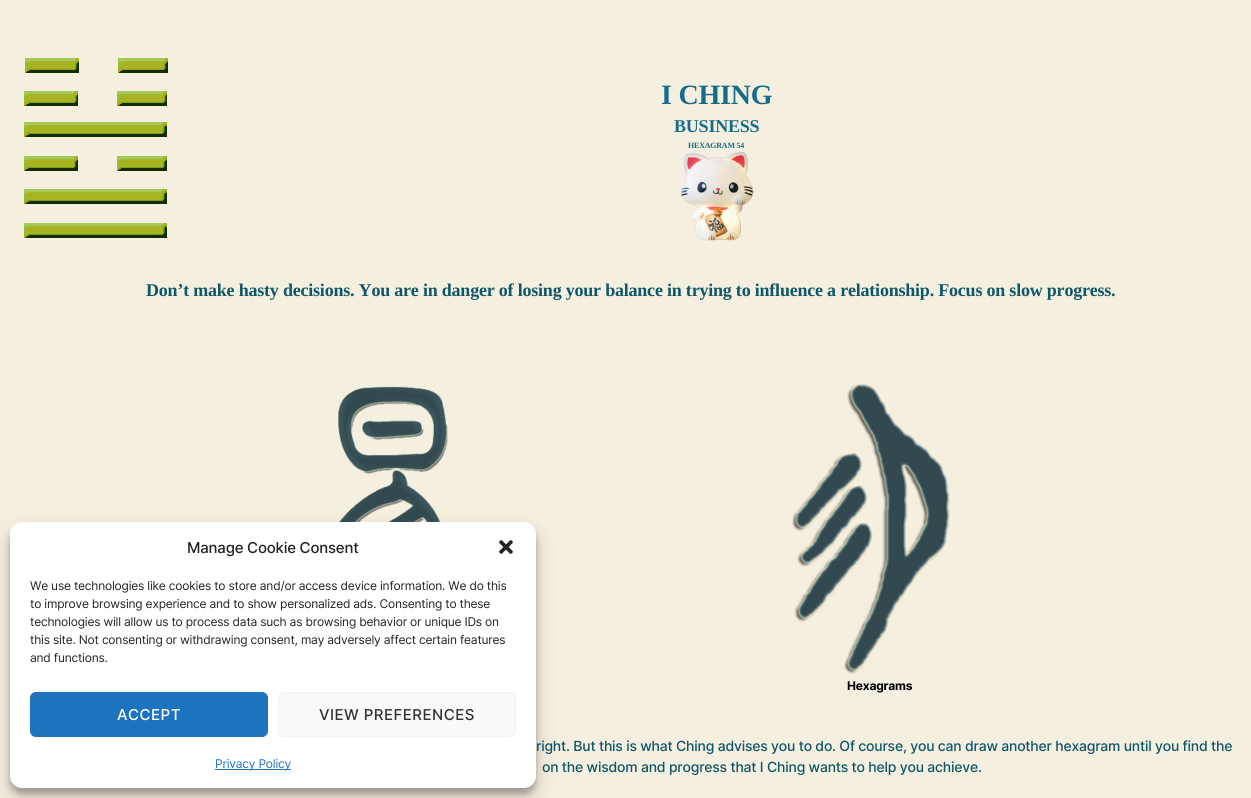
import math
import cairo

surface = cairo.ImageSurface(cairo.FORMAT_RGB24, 1251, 798)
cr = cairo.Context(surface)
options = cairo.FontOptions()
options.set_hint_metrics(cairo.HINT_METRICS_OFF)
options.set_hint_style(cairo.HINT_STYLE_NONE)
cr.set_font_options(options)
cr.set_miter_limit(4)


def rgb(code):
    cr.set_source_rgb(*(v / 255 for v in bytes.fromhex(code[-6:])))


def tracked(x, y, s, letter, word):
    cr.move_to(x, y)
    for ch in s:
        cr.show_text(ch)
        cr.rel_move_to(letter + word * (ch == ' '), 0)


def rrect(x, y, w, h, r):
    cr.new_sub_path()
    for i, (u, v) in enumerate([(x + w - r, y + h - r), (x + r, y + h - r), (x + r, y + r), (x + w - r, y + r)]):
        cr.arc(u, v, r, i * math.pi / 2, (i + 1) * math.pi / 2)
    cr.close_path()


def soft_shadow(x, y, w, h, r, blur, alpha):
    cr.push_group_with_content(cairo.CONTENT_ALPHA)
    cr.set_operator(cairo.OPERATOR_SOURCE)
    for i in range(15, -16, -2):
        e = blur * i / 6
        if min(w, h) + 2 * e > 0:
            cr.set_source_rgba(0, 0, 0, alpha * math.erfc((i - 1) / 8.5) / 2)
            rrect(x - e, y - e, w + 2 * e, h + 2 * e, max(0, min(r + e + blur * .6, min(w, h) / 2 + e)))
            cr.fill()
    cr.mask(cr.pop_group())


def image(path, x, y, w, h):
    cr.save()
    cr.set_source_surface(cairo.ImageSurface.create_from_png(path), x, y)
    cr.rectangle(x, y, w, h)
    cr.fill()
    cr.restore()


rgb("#f5efe0")
cr.paint()
image("img/1.png", 24, 58, 144, 180)
image("img/2.png", 681, 151, 73, 90)
image("img/3.png", 337, 386, 112, 136)
image("img/4.png", 792, 383, 160, 291)
rgb("#000000")
soft_shadow(10, 528, 526, 266, 12, 3, 0.23)
soft_shadow(10, 532, 526, 266, 12, 10, 0.19)
rgb("#ffffff")
rrect(10, 522, 526, 266, 12)
cr.fill()
image("img/5.png", 499, 540, 14, 14)
rgb("#1e73be")
rrect(30.5, 692.5, 237, 44, 5.5)
cr.fill_preserve()
cr.set_line_width(1)
cr.stroke()
rgb("#f9f9f9")
rrect(278.5, 692.5, 237, 44, 5.5)
cr.fill_preserve()
rgb("#f2f2f2")
cr.stroke()
rgb("#1e73be")
cr.rectangle(215, 769, 76, 1)
cr.fill()
cr.select_font_face("Liberation Serif", cairo.FONT_SLANT_NORMAL, cairo.FONT_WEIGHT_BOLD)
cr.set_font_size(28)
rgb("#166d8a")
tracked(661, 104, "I CHING", -0.21, 0)
cr.set_font_size(18)
tracked(674, 132, "BUSINESS", -0.21, 0)
cr.set_font_size(8)
tracked(688, 148, "HEXAGRAM 54", -0.21, 0)
cr.set_font_size(18)
rgb("#0e5769")
tracked(146, 296, "Don’t make hasty decisions. You are in danger of losing your balance in trying to influence a relationship. Focus on slow progress.", -0.21, 0)
cr.select_font_face("Inter", cairo.FONT_SLANT_NORMAL, cairo.FONT_WEIGHT_BOLD)
cr.set_font_size(12)
rgb("#000000")
tracked(847, 690, "Hexagrams", -0.21, 0)
cr.select_font_face("Inter Medium")
cr.set_font_size(14)
rgb("#0e5769")
tracked(536, 751, "right. But this is what Ching advises you to do. Of course, you can draw another hexagram until you find the", -0.21, 0)
tracked(542, 772, "on the wisdom and progress that I Ching wants to help you achieve.", -0.21, 0)
cr.set_font_size(15)
rgb("#222222")
tracked(187, 553, "Manage Cookie Consent", -0.21, 0)
cr.select_font_face("Inter")
cr.set_font_size(12)
for x, y, s in [
    (30, 590, "We use technologies like cookies to store and/or access device information. We do this"),
    (30, 608, "to improve browsing experience and to show personalized ads. Consenting to these"),
    (30, 626, "technologies will allow us to process data such as browsing behavior or unique IDs on"),
    (30, 644, "this site. Not consenting or withdrawing consent, may adversely affect certain features"),
    (30, 662, "and functions."),
]:
    tracked(x, y, s, -0.21, 0)
cr.select_font_face("Inter Medium")
cr.set_font_size(15)
rgb("#ffffff")
tracked(117, 720, "ACCEPT", 0.5, 0)
rgb("#333333")
tracked(319, 720, "VIEW PREFERENCES", 0.5, 0)
cr.select_font_face("Inter")
cr.set_font_size(12)
rgb("#1e73be")
tracked(215, 768, "Privacy Policy", -0.21, 0)
surface.write_to_png("page.png")
